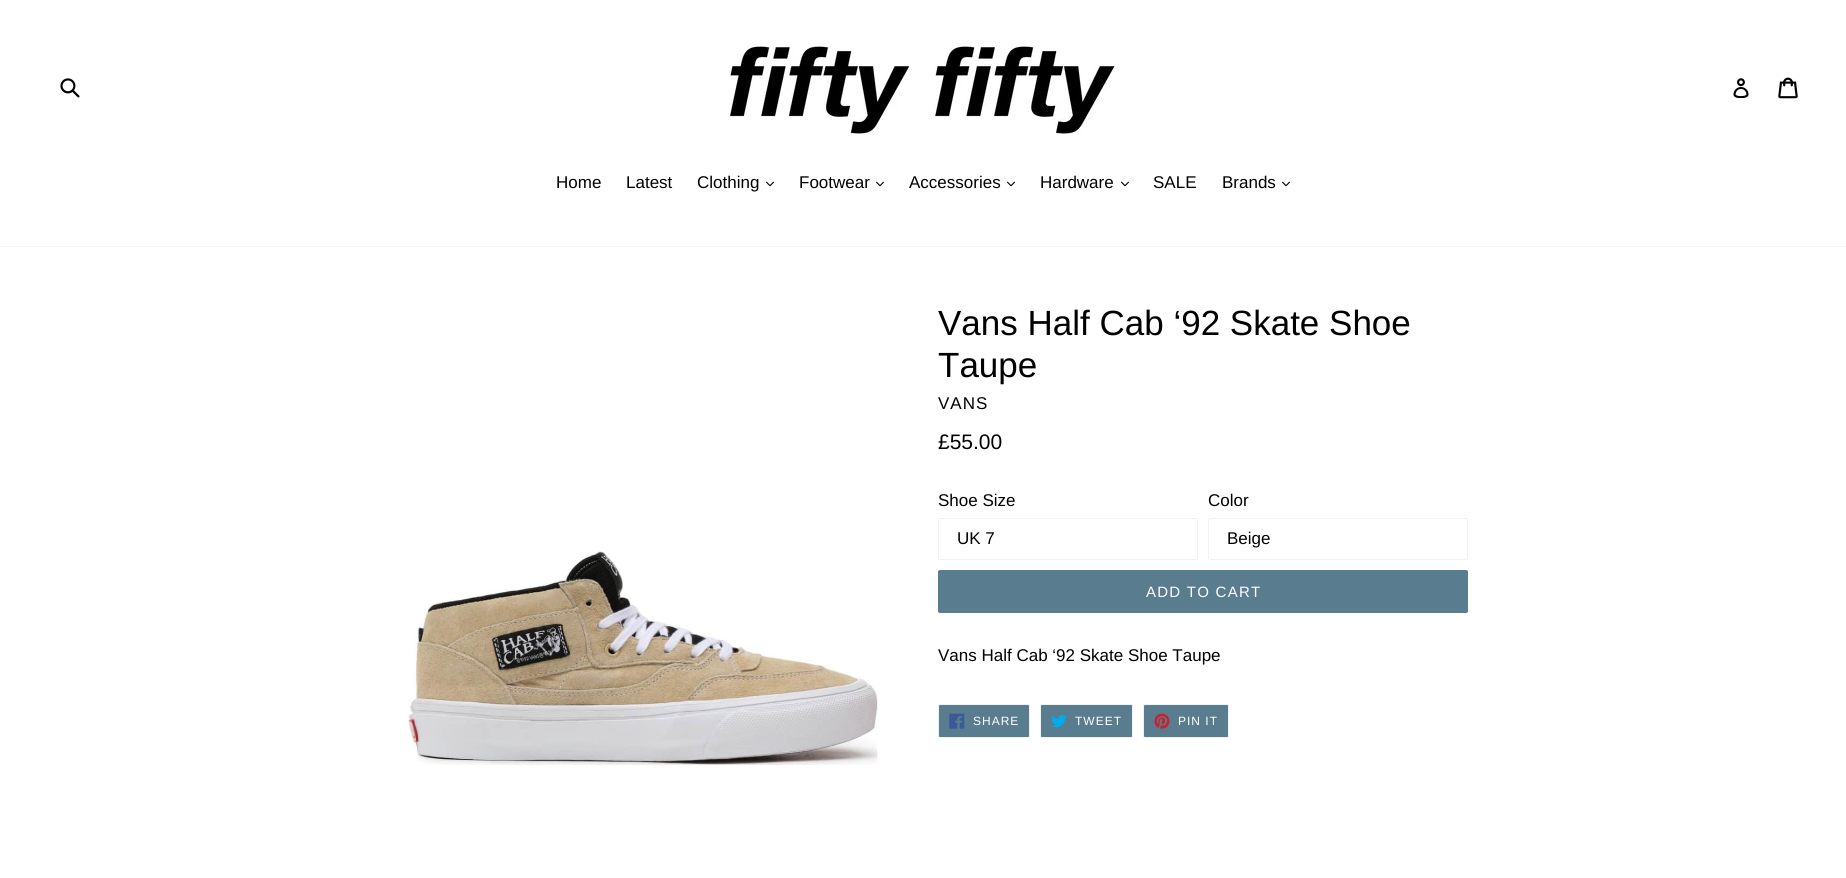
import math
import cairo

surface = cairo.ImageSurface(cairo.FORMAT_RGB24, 1846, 878)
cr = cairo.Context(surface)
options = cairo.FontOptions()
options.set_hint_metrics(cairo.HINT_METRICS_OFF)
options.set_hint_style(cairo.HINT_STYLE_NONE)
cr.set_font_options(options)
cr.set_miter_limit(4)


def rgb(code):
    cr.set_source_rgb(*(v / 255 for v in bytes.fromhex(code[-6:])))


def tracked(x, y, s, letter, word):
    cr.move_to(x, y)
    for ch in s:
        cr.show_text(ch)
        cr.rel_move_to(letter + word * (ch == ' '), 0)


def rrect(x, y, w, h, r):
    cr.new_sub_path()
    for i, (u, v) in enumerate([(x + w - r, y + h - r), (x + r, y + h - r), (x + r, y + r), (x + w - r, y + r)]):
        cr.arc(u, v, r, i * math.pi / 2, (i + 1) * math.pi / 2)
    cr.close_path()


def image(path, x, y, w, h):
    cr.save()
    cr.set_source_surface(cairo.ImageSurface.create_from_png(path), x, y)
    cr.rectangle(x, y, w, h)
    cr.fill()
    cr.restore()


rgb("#ffffff")
cr.paint()
image("img/1.png", 60, 78, 20, 20)
image("img/2.png", 727, 46, 388, 88)
image("img/3.png", 1733, 78, 16, 20)
image("img/4.png", 1778, 77, 20, 22)
rgb("#f2f2f2")
cr.rectangle(0, 246, 1846, 1)
cr.fill()
image("img/5.png", 766, 181, 8, 6)
image("img/5.png", 876, 181, 8, 6)
image("img/5.png", 1007, 181, 8, 6)
image("img/5.png", 1121, 181, 8, 6)
image("img/5.png", 1282, 181, 8, 6)
image("img/6.png", 404, 551, 474, 214)
rrect(938.5, 518.5, 259, 41, 1.5)
cr.set_line_width(1)
cr.stroke()
rrect(1208.5, 518.5, 259, 41, 1.5)
cr.stroke()
rgb("#5a7c8f")
rrect(938, 570, 530, 43, 2)
cr.fill()
rrect(938.5, 704.5, 91, 33, 1.5)
cr.fill_preserve()
rgb("#f2f2f2")
cr.stroke()
image("img/7.png", 949, 713, 16, 16)
rgb("#5a7c8f")
rrect(1040.5, 704.5, 92, 33, 1.5)
cr.fill_preserve()
rgb("#f2f2f2")
cr.stroke()
image("img/8.png", 1051, 714, 16, 14)
rgb("#5a7c8f")
rrect(1143.5, 704.5, 85, 33, 1.5)
cr.fill_preserve()
rgb("#f2f2f2")
cr.stroke()
image("img/9.png", 1154, 713, 16, 16)
cr.select_font_face("Liberation Sans")
cr.set_font_size(17)
rgb("#000000")
for x, y, s in [
    (556, 188, "Home"),
    (626, 188, "Latest"),
    (697, 188, "Clothing"),
    (799, 188, "Footwear"),
    (909, 188, "Accessories"),
    (1040, 188, "Hardware"),
    (1153, 188, "SALE"),
    (1222, 188, "Brands"),
]:
    cr.move_to(x, y)
    cr.show_text(s)
cr.set_font_size(35)
cr.move_to(938, 335)
cr.show_text("Vans Half Cab ‘92 Skate Shoe")
cr.move_to(938, 377)
cr.show_text("Taupe")
cr.set_font_size(17)
tracked(938, 409, "VANS", 1, 0)
cr.set_font_size(21)
cr.move_to(938, 449)
cr.show_text("£55.00")
cr.set_font_size(17)
for x, y, s in [
    (938, 506, "Shoe Size"),
    (957, 544, "UK 7"),
    (1208, 506, "Color"),
    (1227, 544, "Beige"),
]:
    cr.move_to(x, y)
    cr.show_text(s)
cr.set_font_size(15)
rgb("#ffffff")
tracked(1146, 597, "ADD TO CART", 1.25, 0)
cr.set_font_size(17)
rgb("#000000")
cr.move_to(938, 661)
cr.show_text("Vans Half Cab ‘92 Skate Shoe Taupe")
cr.set_font_size(12)
rgb("#ffffff")
for x, y, s in [
    (973, 725, "SHARE"),
    (1075, 725, "TWEET"),
    (1178, 725, "PIN IT"),
]:
    tracked(x, y, s, 1, 0)
surface.write_to_png("page.png")
